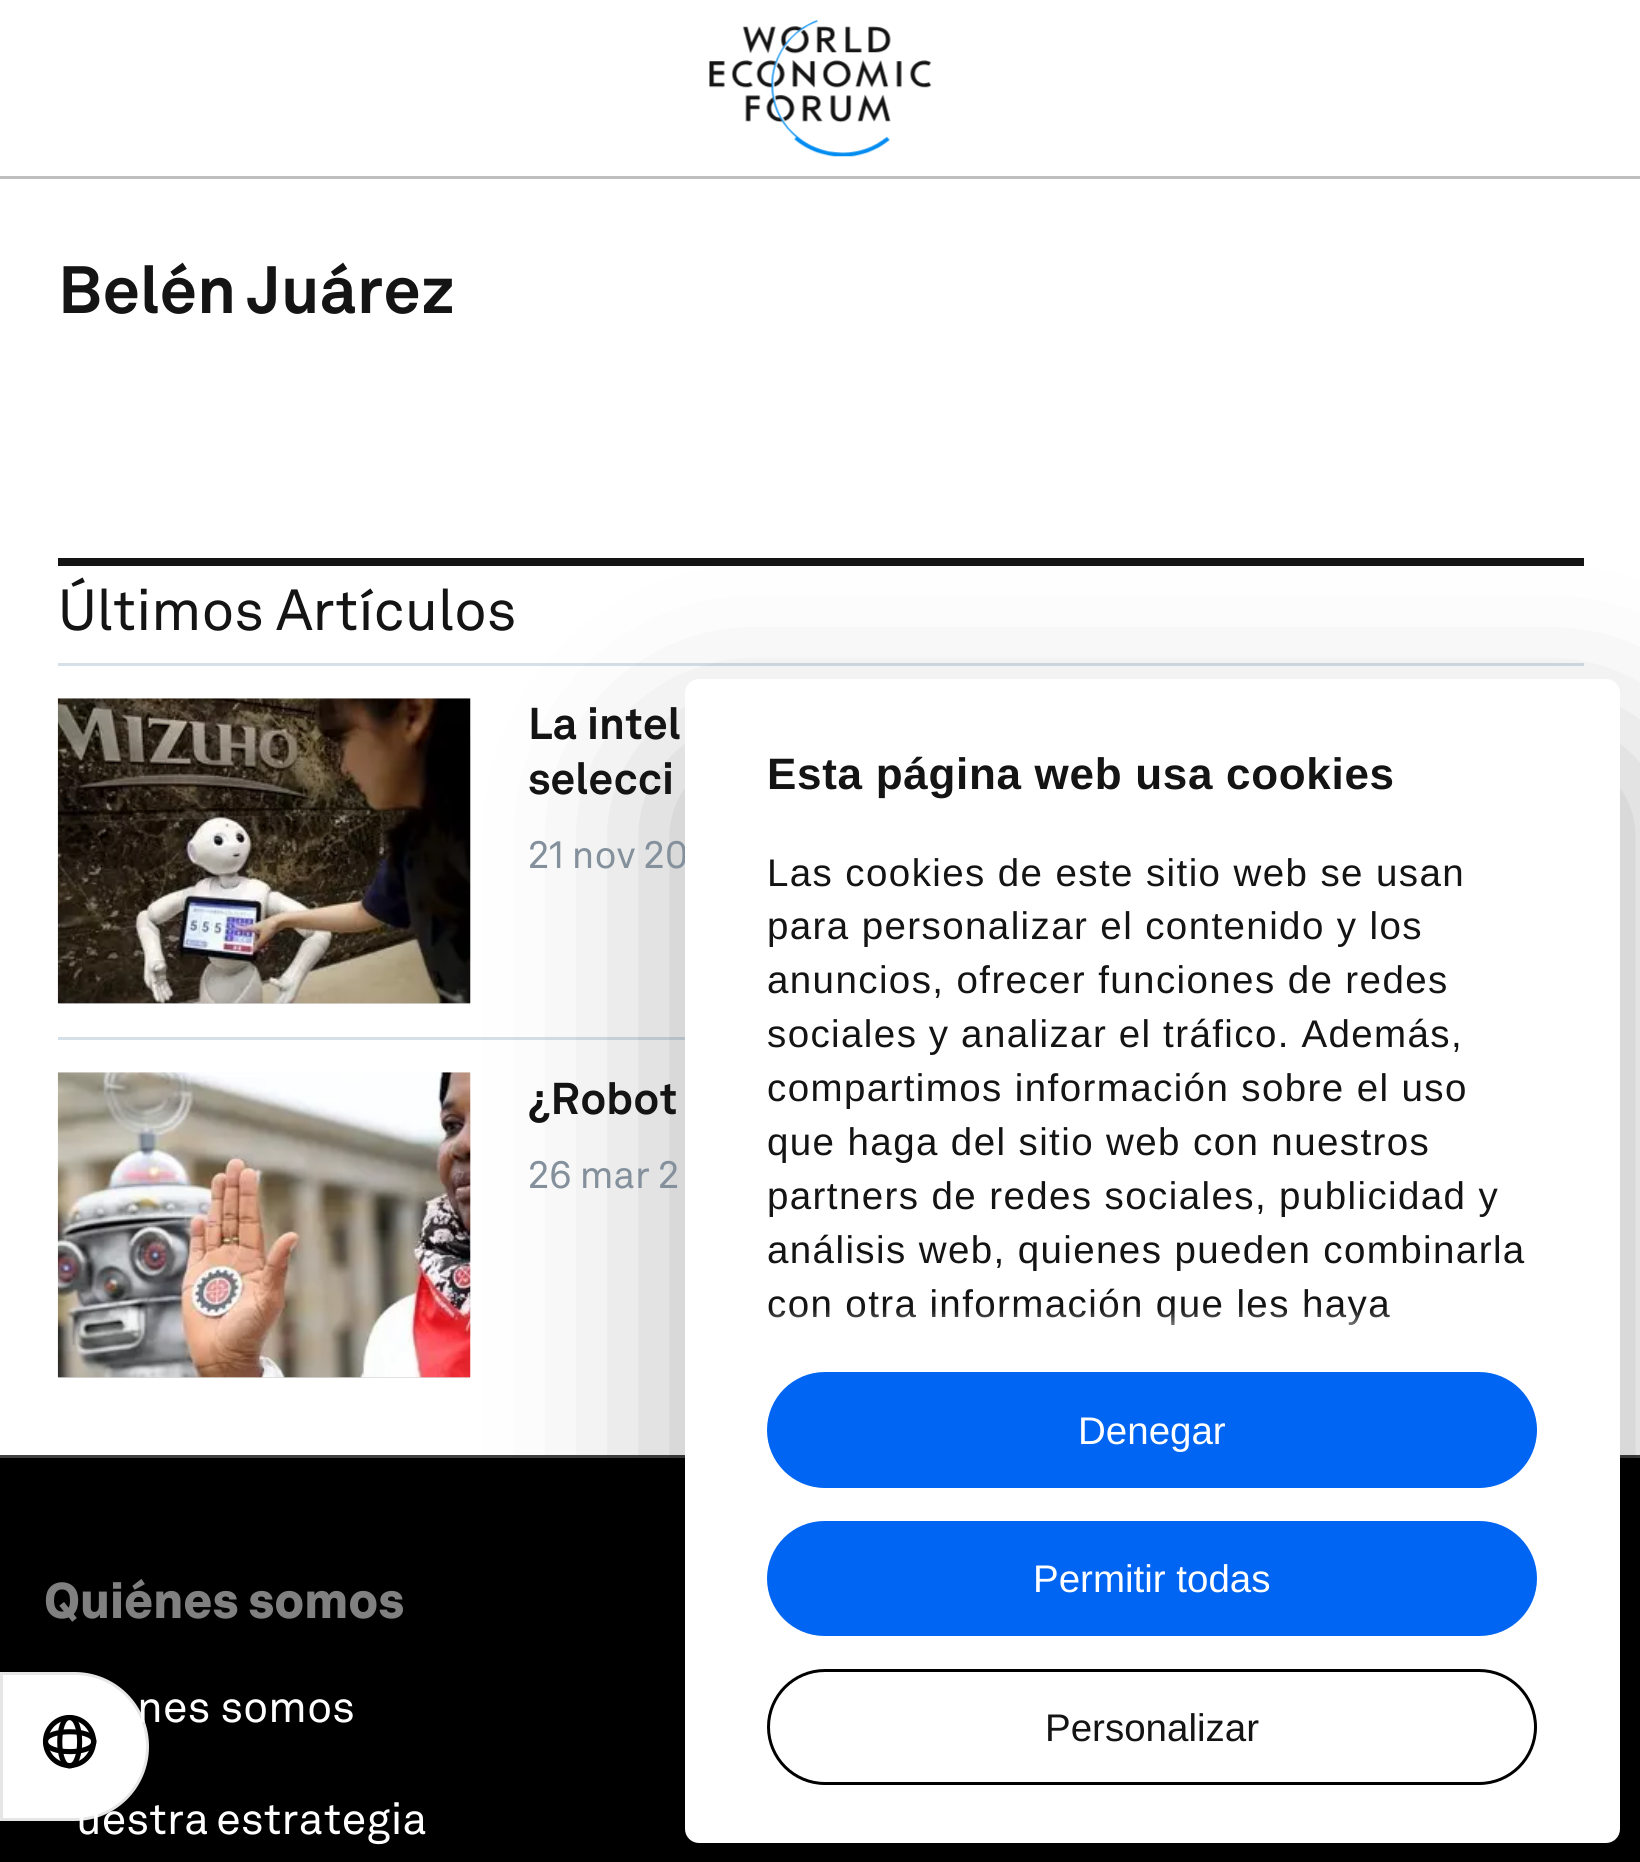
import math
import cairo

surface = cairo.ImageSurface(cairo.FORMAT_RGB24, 1640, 1862)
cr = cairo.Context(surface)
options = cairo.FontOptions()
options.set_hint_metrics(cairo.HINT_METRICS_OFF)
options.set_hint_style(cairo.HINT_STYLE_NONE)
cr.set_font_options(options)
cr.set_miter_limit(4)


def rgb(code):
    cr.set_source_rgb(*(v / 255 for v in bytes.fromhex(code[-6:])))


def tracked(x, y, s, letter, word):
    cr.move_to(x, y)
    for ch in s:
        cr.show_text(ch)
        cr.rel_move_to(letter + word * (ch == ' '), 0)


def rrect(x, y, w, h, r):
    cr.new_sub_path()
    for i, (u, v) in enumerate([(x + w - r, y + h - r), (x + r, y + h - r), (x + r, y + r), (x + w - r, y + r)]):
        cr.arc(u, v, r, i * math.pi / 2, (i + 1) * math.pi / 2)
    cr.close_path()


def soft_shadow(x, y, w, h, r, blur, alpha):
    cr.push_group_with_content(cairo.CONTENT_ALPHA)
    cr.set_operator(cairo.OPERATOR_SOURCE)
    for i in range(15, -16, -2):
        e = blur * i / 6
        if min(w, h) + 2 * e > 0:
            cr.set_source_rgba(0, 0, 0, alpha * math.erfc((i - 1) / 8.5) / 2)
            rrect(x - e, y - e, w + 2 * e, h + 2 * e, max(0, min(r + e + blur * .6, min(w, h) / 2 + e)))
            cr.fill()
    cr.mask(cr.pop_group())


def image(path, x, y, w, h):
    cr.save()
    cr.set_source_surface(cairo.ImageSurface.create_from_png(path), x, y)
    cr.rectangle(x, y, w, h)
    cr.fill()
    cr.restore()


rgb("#ffffff")
cr.paint()
rgb("#bfbfbf")
cr.rectangle(0, 176, 1640, 3)
cr.fill()
image("img/1.png", 709, 20, 223, 137)
for x, y, w, h, color in [
    (58, 558, 1526, 8, "#141414"),
    (58, 663, 1526, 3, "#d5e0e8"),
    (58, 1037, 627, 3, "#d5e0e8"),
    (58, 1003, 412, 1, "#d8d8d8"),
]:
    rgb(color)
    cr.rectangle(x, y, w, h)
    cr.fill()
image("img/2.png", 470, 739, 1, 223)
image("img/3.png", 57, 698, 414, 306)
cr.rectangle(58, 1377, 412, 1)
cr.fill()
image("img/2.png", 470, 1113, 1, 223)
image("img/4.png", 57, 1072, 414, 306)
rgb("#000000")
cr.rectangle(0, 1458, 1640, 404)
cr.fill()
rgb("#404040")
cr.rectangle(0, 1455, 1640, 3)
cr.fill()
rgb("#000000")
soft_shadow(0, 1675, 149, 148, 74, 3, 0.04)
soft_shadow(0, 1683, 149, 149, 74.5, 16.5, 0.08)
rgb("#ffffff")
cr.new_path()
cr.move_to(1.5, 1673.5)
cr.line_to(74.5, 1673.5)
cr.curve_to(115, 1673.5, 147.5, 1706, 147.5, 1746.5)
cr.curve_to(147.5, 1787, 115, 1819.5, 74.5, 1819.5)
cr.line_to(1.5, 1819.5)
cr.close_path()
cr.fill_preserve()
rgb("#e6e6e6")
cr.set_line_width(3)
cr.stroke()
cr.arc(69.5, 1741.5, 24, 0, 2 * math.pi)
rgb("#000000")
cr.set_line_width(5.1)
cr.stroke()
cr.new_path()
cr.move_to(69.5, 1766)
cr.curve_to(56.5, 1766, 56.5, 1717.5, 69.5, 1717.5)
cr.move_to(94, 1741.5)
cr.curve_to(94, 1755, 45.5, 1755, 45.5, 1741.5)
cr.move_to(94, 1741.5)
cr.curve_to(94, 1728.5, 45.5, 1728.5, 45.5, 1741.5)
cr.move_to(69.5, 1766)
cr.curve_to(83, 1766, 83, 1717.5, 69.5, 1717.5)
cr.stroke()
rgb("#000000")
soft_shadow(685, 767, 935, 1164, 14, 93.5, 0.3)
cr.select_font_face("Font", cairo.FONT_SLANT_NORMAL, cairo.FONT_WEIGHT_BOLD)
cr.set_font_size(66)
rgb("#141414")
tracked(58, 313, "Belén Juárez", 0, -4)
cr.select_font_face("Font")
cr.set_font_size(57.25)
tracked(58, 630, "Últimos Artículos", 0, -1)
cr.select_font_face("Font", cairo.FONT_SLANT_NORMAL, cairo.FONT_WEIGHT_BOLD)
cr.set_font_size(44)
cr.move_to(528, 739)
cr.show_text("La intel")
cr.move_to(528, 794)
cr.show_text("selecci")
cr.select_font_face("Font")
cr.set_font_size(38.5)
rgb("#84919c")
tracked(528, 868, "21 nov 20", 0, -1)
cr.select_font_face("Font", cairo.FONT_SLANT_NORMAL, cairo.FONT_WEIGHT_BOLD)
cr.set_font_size(44)
rgb("#141414")
tracked(528, 1114, "¿Robot", 0, -1)
cr.select_font_face("Font")
cr.set_font_size(38.5)
rgb("#84919c")
tracked(528, 1188, "26 mar 2", 0, -1)
cr.select_font_face("Font Black")
cr.set_font_size(49.5)
rgb("#808080")
cr.move_to(44, 1618)
cr.show_text("Quiénes somos")
cr.select_font_face("Font")
cr.set_font_size(44)
rgb("#ffffff")
cr.move_to(137, 1722)
cr.show_text("nes somos")
tracked(76, 1834, "uestra estrategia", 0, -3)
rrect(685, 679, 935, 1164, 14)
cr.fill()
cr.select_font_face("Liberation Sans", cairo.FONT_SLANT_NORMAL, cairo.FONT_WEIGHT_BOLD)
rgb("#141414")
tracked(767, 789, "Esta página web usa cookies", 0.7, 0)
cr.select_font_face("Liberation Sans")
cr.set_font_size(38.5)
for x, y, s in [
    (767, 886, "Las cookies de este sitio web se usan"),
    (767, 939, "para personalizar el contenido y los"),
    (767, 993, "anuncios, ofrecer funciones de redes"),
]:
    tracked(x, y, s, 1.4, 0)
tracked(767, 1047, "sociales y analizar el tráfico. Además,", 1.4, -0.5)
for x, y, s in [
    (767, 1101, "compartimos información sobre el uso"),
    (767, 1155, "que haga del sitio web con nuestros"),
    (767, 1209, "partners de redes sociales, publicidad y"),
    (767, 1263, "análisis web, quienes pueden combinarla"),
    (767, 1317, "con otra información que les haya"),
]:
    tracked(x, y, s, 1.4, 0)
gradient = cairo.LinearGradient(1136, 1372, 1136, 1309)
gradient.add_color_stop_rgba(0, 1, 1, 1, 1)
gradient.add_color_stop_rgba(0.5, 1, 1, 1, 0.8)
gradient.add_color_stop_rgba(1, 1, 1, 1, 0)
cr.set_source(gradient)
cr.rectangle(769, 1310, 621, 15)
cr.fill()
rgb("#0065f2")
rrect(768.5, 1373.5, 767, 113, 56.5)
cr.fill_preserve()
cr.set_line_width(3)
cr.stroke()
rgb("#ffffff")
cr.move_to(1078, 1444)
cr.show_text("Denegar")
rgb("#0065f2")
rrect(768.5, 1522.5, 767, 112, 56)
cr.fill_preserve()
cr.stroke()
rgb("#ffffff")
cr.move_to(1033, 1592)
cr.show_text("Permitir todas")
rrect(768.5, 1670.5, 767, 113, 56.5)
rgb("#000000")
cr.stroke()
rgb("#141414")
cr.move_to(1045, 1741)
cr.show_text("Personalizar")
surface.write_to_png("page.png")
